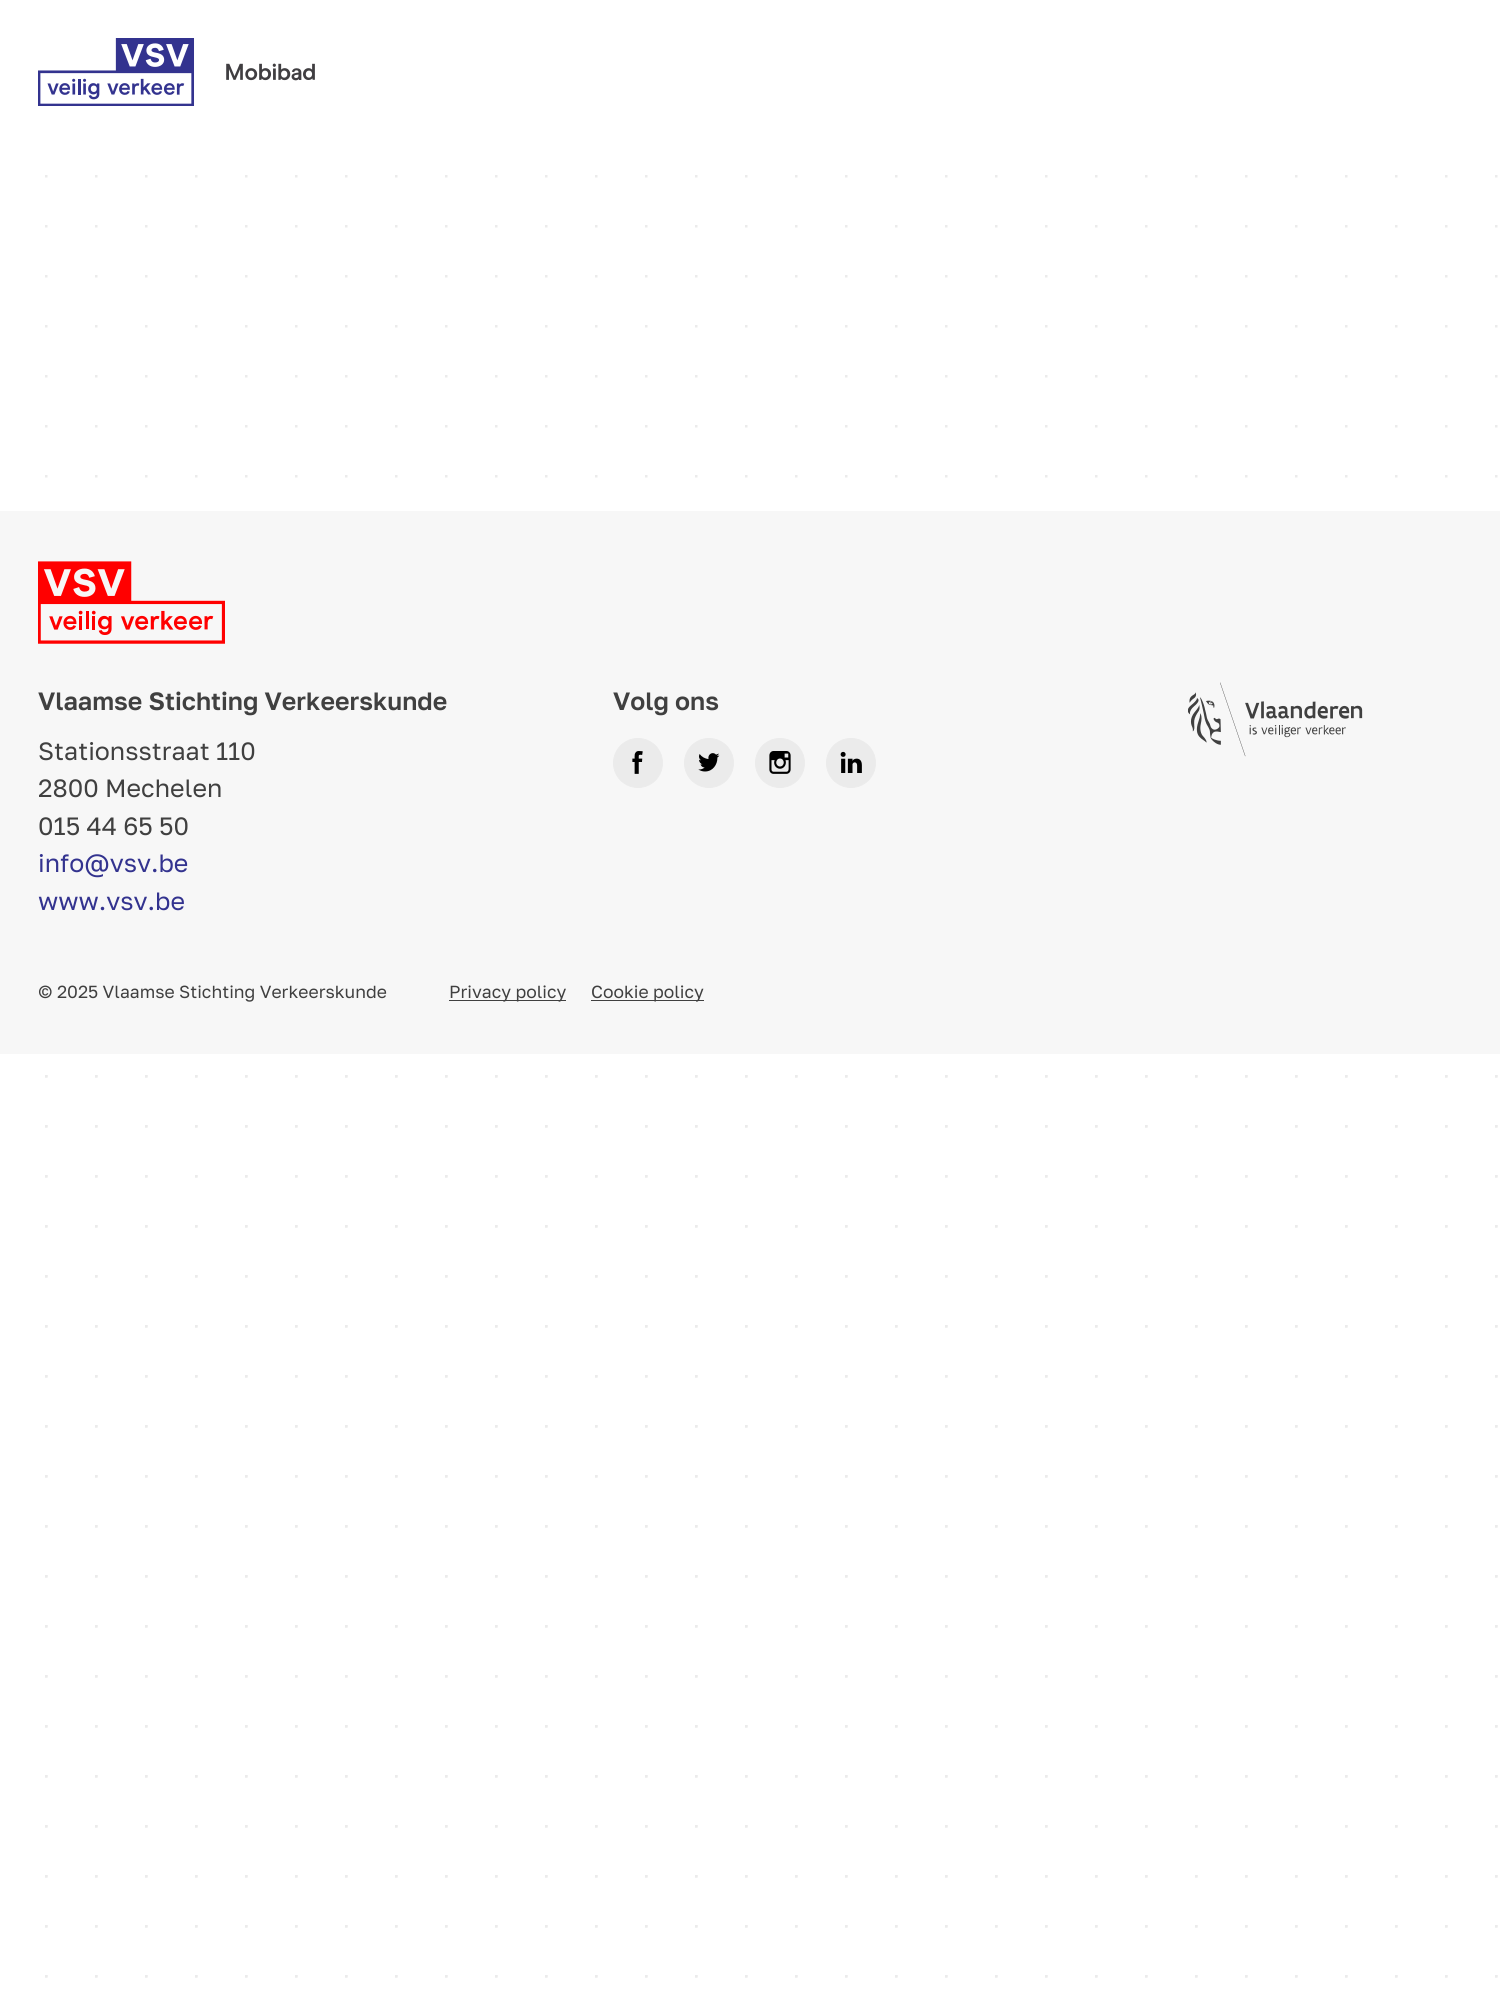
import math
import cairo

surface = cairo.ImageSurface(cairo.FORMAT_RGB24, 1500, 2006)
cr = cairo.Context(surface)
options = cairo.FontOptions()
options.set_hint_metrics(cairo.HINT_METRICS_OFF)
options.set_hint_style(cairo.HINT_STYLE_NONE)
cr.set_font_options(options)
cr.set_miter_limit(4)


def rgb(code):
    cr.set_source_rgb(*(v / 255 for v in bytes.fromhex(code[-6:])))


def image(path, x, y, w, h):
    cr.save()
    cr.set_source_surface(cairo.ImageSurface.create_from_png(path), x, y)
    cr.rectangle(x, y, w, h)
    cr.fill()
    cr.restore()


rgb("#ffffff")
cr.paint()
image("img/1.png", 45, 1075, 1453, 903)
image("img/2.png", 45, 175, 1453, 1803)
image("img/3.png", 38, 38, 277, 68)
rgb("#f7f7f7")
cr.rectangle(0, 511, 1500, 543)
cr.fill()
image("img/4.png", 38, 561, 187, 83)
rgb("#ebebeb")
cr.arc(638, 763, 24.5, 0, 2 * math.pi)
cr.fill_preserve()
cr.set_line_width(1)
cr.stroke()
image("img/5.png", 632, 751, 11, 23)
cr.arc(709, 763, 24.5, 0, 2 * math.pi)
cr.fill_preserve()
cr.stroke()
image("img/6.png", 698, 753, 22, 19)
cr.arc(780, 763, 24.5, 0, 2 * math.pi)
cr.fill_preserve()
cr.stroke()
image("img/7.png", 769, 751, 22, 23)
cr.arc(851, 763, 24.5, 0, 2 * math.pi)
cr.fill_preserve()
cr.stroke()
image("img/8.png", 840, 751, 22, 22)
image("img/9.png", 1188, 682, 175, 75)
rgb("#404040")
cr.rectangle(449, 1000, 117, 1)
cr.fill()
cr.rectangle(591, 1000, 113, 1)
cr.fill()
cr.select_font_face("Golos Text SemiBold")
cr.set_font_size(25)
cr.move_to(38, 710)
cr.show_text("Vlaamse Stichting Verkeerskunde")
cr.select_font_face("Golos Text")
for x, y, s in [
    (38, 760, "Stationsstraat 110"),
    (38, 797, "2800 Mechelen"),
    (38, 835, "015 44 65 50"),
]:
    cr.move_to(x, y)
    cr.show_text(s)
rgb("#33338f")
cr.move_to(38, 872)
cr.show_text("info@vsv.be")
cr.move_to(38, 910)
cr.show_text("www.vsv.be")
cr.select_font_face("Golos Text SemiBold")
rgb("#404040")
cr.move_to(613, 710)
cr.show_text("Volg ons")
cr.select_font_face("Golos Text")
cr.set_font_size(17.5)
for x, y, s in [
    (38, 998, "© 2025 Vlaamse Stichting Verkeerskunde"),
    (449, 998, "Privacy policy"),
    (591, 998, "Cookie policy"),
]:
    cr.move_to(x, y)
    cr.show_text(s)
surface.write_to_png("page.png")
